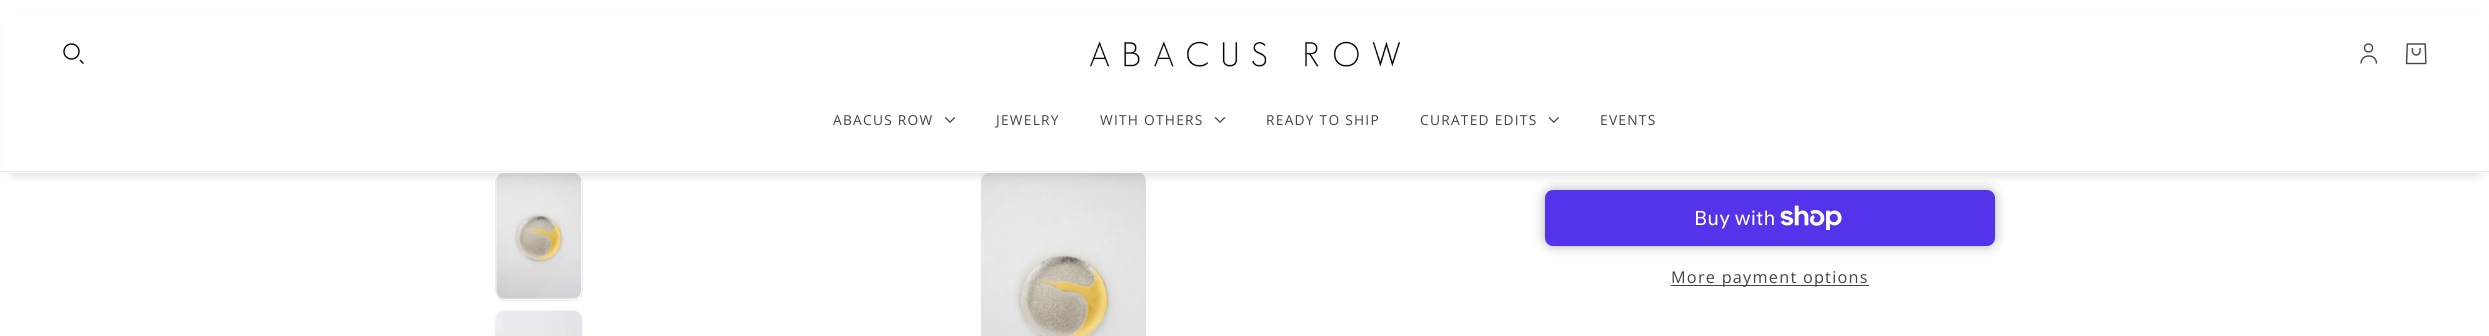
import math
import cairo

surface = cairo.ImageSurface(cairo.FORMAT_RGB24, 2489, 336)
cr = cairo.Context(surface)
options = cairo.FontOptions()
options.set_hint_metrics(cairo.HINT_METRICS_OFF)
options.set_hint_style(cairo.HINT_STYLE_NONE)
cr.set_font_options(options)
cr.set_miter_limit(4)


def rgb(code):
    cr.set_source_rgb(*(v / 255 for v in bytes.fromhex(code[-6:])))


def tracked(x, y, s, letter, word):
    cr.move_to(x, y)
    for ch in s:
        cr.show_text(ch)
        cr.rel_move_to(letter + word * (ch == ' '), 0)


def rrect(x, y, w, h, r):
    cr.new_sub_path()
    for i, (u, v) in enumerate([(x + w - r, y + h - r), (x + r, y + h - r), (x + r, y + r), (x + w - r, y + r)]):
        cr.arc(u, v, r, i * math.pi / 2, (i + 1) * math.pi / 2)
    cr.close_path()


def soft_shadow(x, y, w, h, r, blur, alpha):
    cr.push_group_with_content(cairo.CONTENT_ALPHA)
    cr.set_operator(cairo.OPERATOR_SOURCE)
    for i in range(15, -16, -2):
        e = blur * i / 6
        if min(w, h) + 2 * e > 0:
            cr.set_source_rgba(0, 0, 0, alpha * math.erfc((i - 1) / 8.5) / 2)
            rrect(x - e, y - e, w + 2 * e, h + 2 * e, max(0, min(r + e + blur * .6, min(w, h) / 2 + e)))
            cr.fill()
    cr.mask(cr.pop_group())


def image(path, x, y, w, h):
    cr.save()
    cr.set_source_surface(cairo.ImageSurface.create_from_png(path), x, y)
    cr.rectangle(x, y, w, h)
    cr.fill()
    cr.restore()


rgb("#ffffff")
cr.paint()
rrect(495.5, 173.5, 87, 127, 9.5)
rgb("#ececec")
cr.set_line_width(1)
cr.stroke()
image("img/5.png", 496, 173, 85, 127)
image("img/7.png", 981, 173, 165, 163)
rgb("#000000")
soft_shadow(1545, 190, 450, 56, 8, 6, 0.3)
rgb("#5433eb")
rrect(1545, 190, 450, 56, 8)
cr.fill()
rgb("#000000")
soft_shadow(13, 25, 2465, 148, 0, 6, 0.2)
rgb("#ffffff")
cr.rectangle(3, 15, 2485, 158)
cr.fill()
cr.arc(71.5, 51.5, 7.5, 0, 2 * math.pi)
rgb("#000000")
cr.set_line_width(1.4)
cr.stroke()
cr.new_path()
cr.move_to(80, 60)
cr.line_to(83.5, 63.5)
cr.stroke()
image("img/1.png", 1090, 41, 310, 26)
cr.arc(2368.5, 48, 4, 0, 2 * math.pi)
rgb("#444444")
cr.stroke()
cr.new_path()
cr.move_to(2361, 63.5)
cr.curve_to(2361, 53.5, 2376.5, 53.5, 2376.5, 63.5)
cr.stroke()
image("img/2.png", 2405, 43, 22, 22)
image("img/3.png", 944, 117, 12, 6)
image("img/3.png", 1214, 117, 12, 6)
image("img/4.png", 1548, 117, 11, 6)
rgb("#ececec")
cr.rectangle(0, 171, 2489, 1)
cr.fill()
image("img/6.png", 495, 310, 88, 26)
image("img/8.png", 1780, 205, 62, 25)
rgb("#444444")
cr.rectangle(1671, 285, 198, 1)
cr.fill()
cr.select_font_face("Open Sans")
cr.set_font_size(13.75)
for x, y, s in [
    (833, 125, "ABACUS ROW"),
    (996, 125, "JEWELRY"),
    (1100, 125, "WITH OTHERS"),
    (1266, 125, "READY TO SHIP"),
    (1420, 125, "CURATED EDITS"),
    (1600, 125, "EVENTS"),
]:
    tracked(x, y, s, 1.25, 0)
cr.select_font_face("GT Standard")
cr.set_font_size(20)
rgb("#ffffff")
cr.move_to(1694, 225)
cr.show_text("Buy with")
cr.select_font_face("Open Sans")
cr.set_font_size(16.25)
rgb("#444444")
tracked(1671, 283, "More payment options", 1.25, 0)
surface.write_to_png("page.png")
